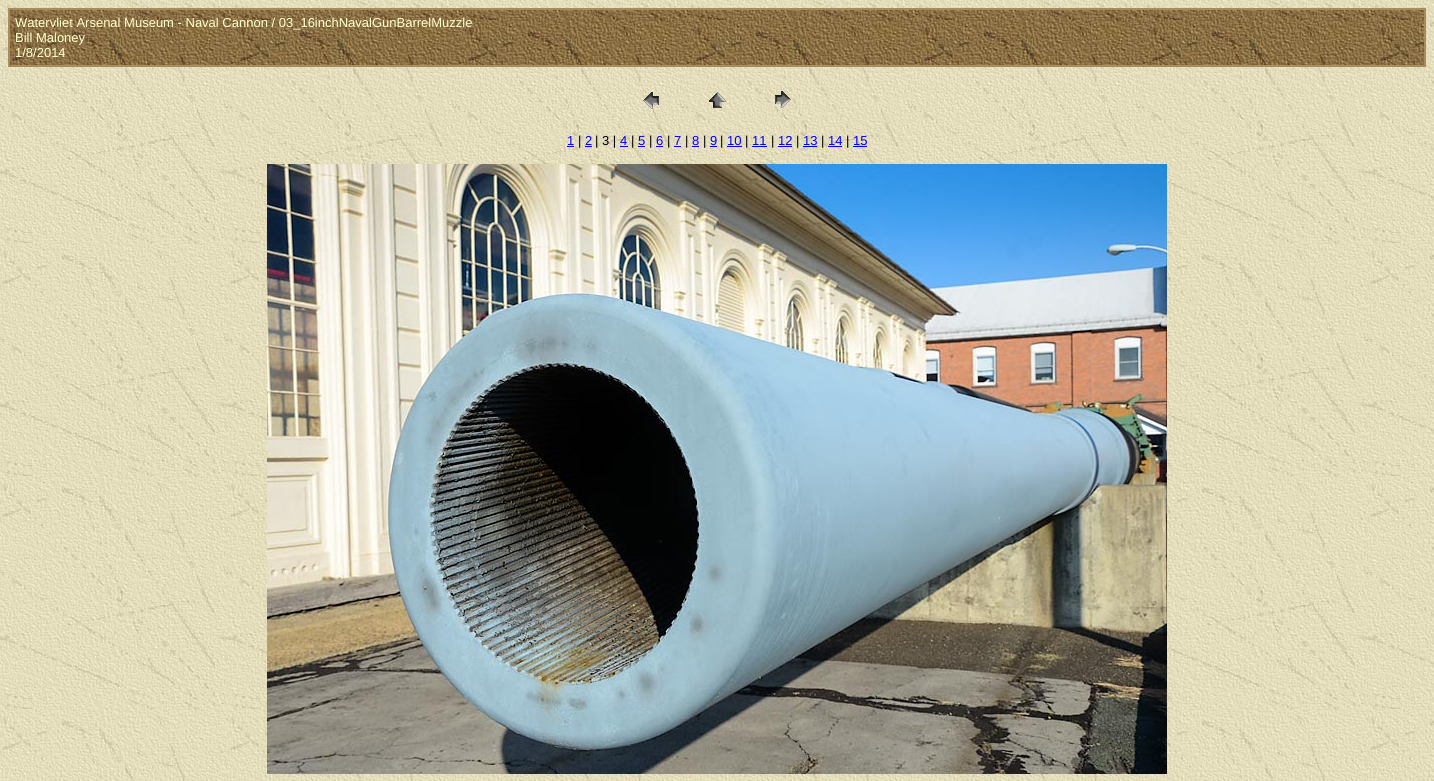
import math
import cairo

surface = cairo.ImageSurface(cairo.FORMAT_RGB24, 1434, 781)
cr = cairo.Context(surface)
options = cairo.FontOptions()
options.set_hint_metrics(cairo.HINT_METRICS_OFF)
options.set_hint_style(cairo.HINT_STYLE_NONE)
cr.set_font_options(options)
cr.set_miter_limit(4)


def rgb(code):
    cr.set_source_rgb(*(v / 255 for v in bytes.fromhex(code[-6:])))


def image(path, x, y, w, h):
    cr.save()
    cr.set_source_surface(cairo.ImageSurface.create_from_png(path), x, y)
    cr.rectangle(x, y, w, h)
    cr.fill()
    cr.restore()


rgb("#ffffff")
cr.paint()
image("img/1.png", 0, 0, 1434, 781)
rgb("#a98c5d")
cr.rectangle(8, 8, 1418, 59)
cr.fill()
image("img/2.png", 10, 10, 1414, 55)
image("img/3.png", 643, 92, 16, 17)
image("img/4.png", 709, 92, 17, 16)
image("img/5.png", 775, 91, 16, 17)
for x, y, w, h, color in [
    (567, 146, 7, 1, "#0000ff"),
    (585, 146, 7, 1, "#0000ff"),
    (620, 146, 8, 1, "#0000ff"),
    (638, 146, 7, 1, "#0000ff"),
    (656, 146, 7, 1, "#0000ff"),
    (674, 146, 7, 1, "#0000ff"),
    (692, 146, 7, 1, "#0000ff"),
    (710, 146, 7, 1, "#0000ff"),
    (727, 146, 15, 1, "#0000ff"),
    (752, 146, 15, 1, "#0000ff"),
    (778, 146, 14, 1, "#0000ff"),
    (803, 146, 14, 1, "#0000ff"),
    (828, 146, 14, 1, "#0000ff"),
    (853, 146, 14, 1, "#0000ff"),
]:
    rgb(color)
    cr.rectangle(x, y, w, h)
    cr.fill()
image("img/6.png", 267, 164, 900, 610)
cr.select_font_face("Liberation Sans")
cr.set_font_size(13)
rgb("#ffffcc")
for x, y, s in [
    (15, 27, "Watervliet Arsenal Museum - Naval Cannon / 03_16inchNavalGunBarrelMuzzle"),
    (15, 42, "Bill Maloney"),
    (15, 57, "1/8/2014"),
]:
    cr.move_to(x, y)
    cr.show_text(s)
rgb("#0000ff")
cr.move_to(567, 145)
cr.show_text("1")
rgb("#000000")
cr.move_to(578, 145)
cr.show_text("|")
rgb("#0000ff")
cr.move_to(585, 145)
cr.show_text("2")
rgb("#000000")
cr.move_to(595, 145)
cr.show_text("| 3 |")
rgb("#0000ff")
cr.move_to(620, 145)
cr.show_text("4")
rgb("#000000")
cr.move_to(631, 145)
cr.show_text("|")
rgb("#0000ff")
cr.move_to(638, 145)
cr.show_text("5")
rgb("#000000")
cr.move_to(649, 145)
cr.show_text("|")
rgb("#0000ff")
cr.move_to(656, 145)
cr.show_text("6")
rgb("#000000")
cr.move_to(667, 145)
cr.show_text("|")
rgb("#0000ff")
cr.move_to(674, 145)
cr.show_text("7")
rgb("#000000")
cr.move_to(685, 145)
cr.show_text("|")
rgb("#0000ff")
cr.move_to(692, 145)
cr.show_text("8")
rgb("#000000")
cr.move_to(703, 145)
cr.show_text("|")
rgb("#0000ff")
cr.move_to(710, 145)
cr.show_text("9")
rgb("#000000")
cr.move_to(720, 145)
cr.show_text("|")
rgb("#0000ff")
cr.move_to(727, 145)
cr.show_text("10")
rgb("#000000")
cr.move_to(745, 145)
cr.show_text("|")
rgb("#0000ff")
cr.move_to(752, 145)
cr.show_text("11")
rgb("#000000")
cr.move_to(771, 145)
cr.show_text("|")
rgb("#0000ff")
cr.move_to(778, 145)
cr.show_text("12")
rgb("#000000")
cr.move_to(796, 145)
cr.show_text("|")
rgb("#0000ff")
cr.move_to(803, 145)
cr.show_text("13")
rgb("#000000")
cr.move_to(821, 145)
cr.show_text("|")
rgb("#0000ff")
cr.move_to(828, 145)
cr.show_text("14")
rgb("#000000")
cr.move_to(846, 145)
cr.show_text("|")
rgb("#0000ff")
cr.move_to(853, 145)
cr.show_text("15")
surface.write_to_png("page.png")
